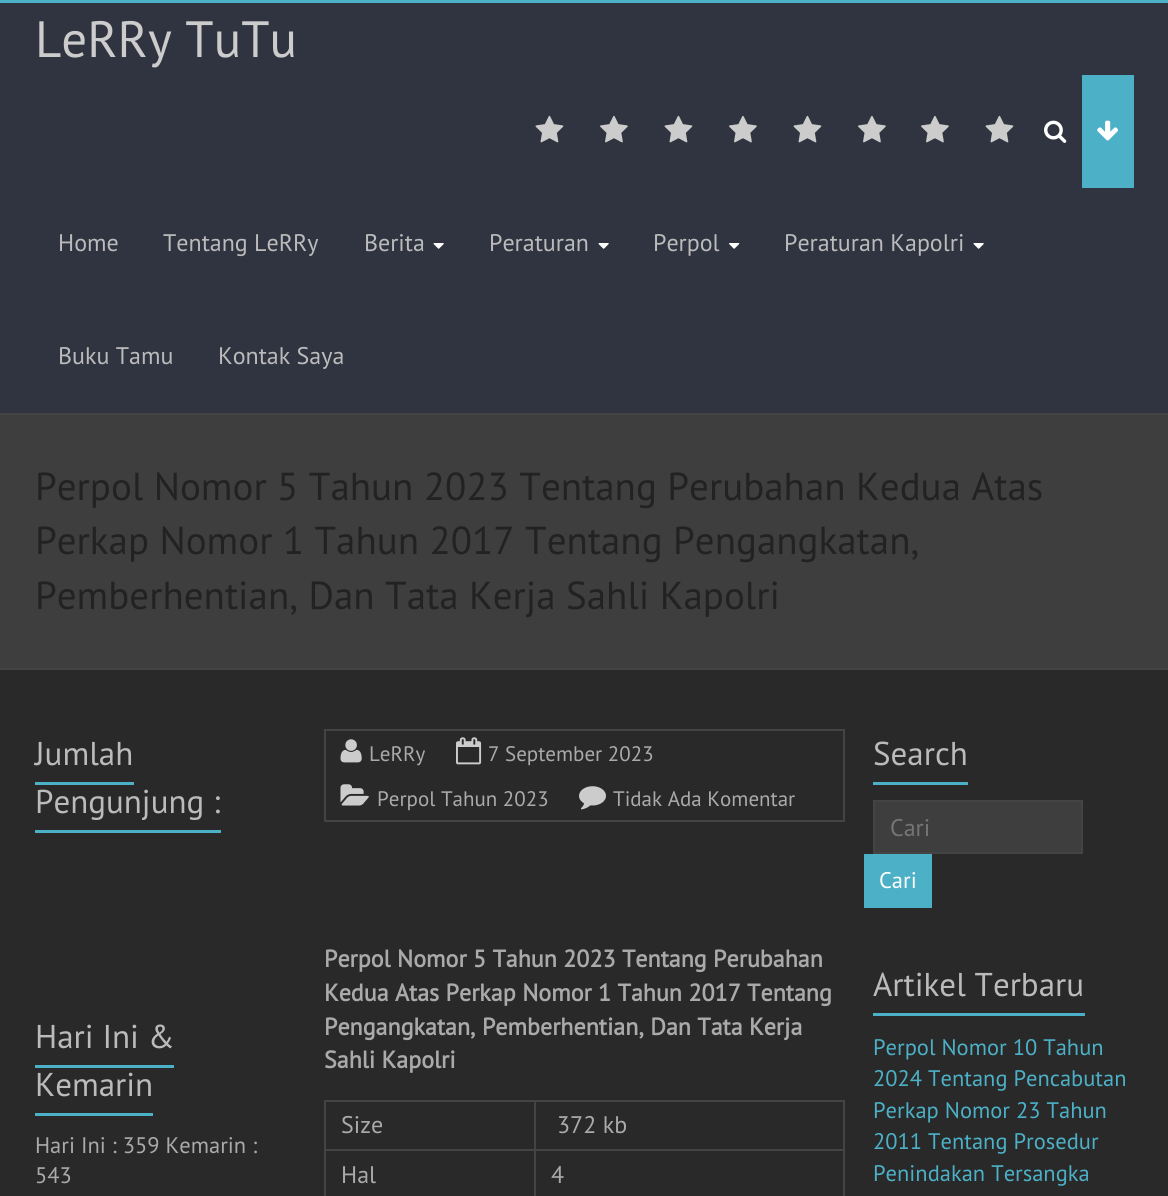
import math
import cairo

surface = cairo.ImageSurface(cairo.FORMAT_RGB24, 1168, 1196)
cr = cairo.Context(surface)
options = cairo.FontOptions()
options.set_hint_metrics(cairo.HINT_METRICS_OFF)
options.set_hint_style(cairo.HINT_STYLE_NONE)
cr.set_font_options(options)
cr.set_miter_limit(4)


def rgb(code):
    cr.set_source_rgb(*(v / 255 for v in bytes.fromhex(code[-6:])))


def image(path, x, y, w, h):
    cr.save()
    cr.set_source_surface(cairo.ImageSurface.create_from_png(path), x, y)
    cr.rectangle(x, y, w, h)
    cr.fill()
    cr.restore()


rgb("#292929")
cr.paint()
for x, y, w, h, color in [
    (0, 3, 1168, 410, "#303440"),
    (0, 0, 1168, 3, "#4cb0c6"),
    (0, 413, 1168, 2, "#444444"),
]:
    rgb(color)
    cr.rectangle(x, y, w, h)
    cr.fill()
image("img/1.png", 535, 115, 29, 28)
image("img/2.png", 600, 115, 28, 28)
image("img/1.png", 664, 115, 29, 28)
image("img/2.png", 729, 115, 28, 28)
image("img/1.png", 793, 115, 29, 28)
image("img/2.png", 858, 115, 28, 28)
image("img/2.png", 921, 115, 28, 28)
image("img/1.png", 985, 115, 29, 28)
image("img/3.png", 1044, 120, 23, 23)
rgb("#4cb0c6")
cr.rectangle(1082, 75, 52, 113)
cr.fill()
image("img/4.png", 1097, 120, 21, 21)
image("img/5.png", 433, 243, 11, 6)
image("img/5.png", 598, 243, 11, 6)
image("img/6.png", 729, 243, 11, 6)
image("img/5.png", 973, 243, 11, 6)
for x, y, w, h, color in [
    (0, 415, 1168, 253, "#3e3e3e"),
    (0, 668, 1168, 2, "#444444"),
    (35, 782, 99, 3, "#4cb0c6"),
    (35, 830, 186, 3, "#4cb0c6"),
    (35, 1065, 139, 3, "#4cb0c6"),
    (35, 1113, 118, 3, "#4cb0c6"),
]:
    rgb(color)
    cr.rectangle(x, y, w, h)
    cr.fill()
cr.rectangle(325, 730, 519, 91)
rgb("#444444")
cr.stroke()
image("img/7.png", 340, 739, 22, 24)
image("img/8.png", 456, 737, 26, 28)
image("img/9.png", 340, 784, 29, 22)
image("img/10.png", 579, 786, 27, 24)
for x, y, w, h, color in [
    (534, 1100, 311, 2, "#444444"),
    (534, 1149, 311, 2, "#444444"),
    (534, 1149, 2, 47, "#444444"),
    (324, 1149, 212, 2, "#444444"),
    (534, 1100, 2, 51, "#444444"),
    (324, 1100, 212, 2, "#444444"),
    (324, 1149, 2, 47, "#444444"),
    (324, 1100, 2, 51, "#444444"),
    (843, 1149, 2, 47, "#444444"),
    (843, 1100, 2, 51, "#444444"),
    (873, 782, 95, 3, "#4cb0c6"),
]:
    rgb(color)
    cr.rectangle(x, y, w, h)
    cr.fill()
rgb("#3e3e3e")
cr.rectangle(874, 801, 208, 52)
cr.fill_preserve()
rgb("#444444")
cr.stroke()
rgb("#4cb0c6")
cr.rectangle(864, 854, 68, 54)
cr.fill()
cr.rectangle(873, 1013, 212, 3)
cr.fill()
cr.select_font_face("PT Sans")
cr.set_font_size(51)
rgb("#cccccc")
cr.move_to(35, 57)
cr.show_text("LeRRy TuTu")
cr.set_font_size(24)
rgb("#bbbbbb")
for x, y, s in [
    (58, 251, "Home"),
    (163, 251, "Tentang LeRRy"),
    (364, 251, "Berita"),
    (489, 251, "Peraturan"),
    (653, 251, "Perpol"),
    (784, 251, "Peraturan Kapolri"),
    (58, 364, "Buku Tamu"),
    (218, 364, "Kontak Saya"),
]:
    cr.move_to(x, y)
    cr.show_text(s)
cr.set_font_size(39)
rgb("#222222")
for x, y, s in [
    (35, 500, "Perpol Nomor 5 Tahun 2023 Tentang Perubahan Kedua Atas"),
    (35, 554, "Perkap Nomor 1 Tahun 2017 Tentang Pengangkatan,"),
    (35, 609, "Pemberhentian, Dan Tata Kerja Sahli Kapolri"),
]:
    cr.move_to(x, y)
    cr.show_text(s)
cr.set_font_size(33)
rgb("#bbbbbb")
for x, y, s in [
    (35, 765, "Jumlah"),
    (35, 813, "Pengunjung :"),
    (35, 1048, "Hari Ini &"),
    (35, 1096, "Kemarin"),
]:
    cr.move_to(x, y)
    cr.show_text(s)
cr.set_font_size(22.5)
rgb("#aaaaaa")
cr.move_to(35, 1153)
cr.show_text("Hari Ini : 359 Kemarin :")
cr.move_to(35, 1183)
cr.show_text("543")
cr.set_font_size(21)
for x, y, s in [
    (369, 761, "LeRRy"),
    (488, 761, "7 September 2023"),
    (377, 806, "Perpol Tahun 2023"),
    (613, 806, "Tidak Ada Komentar"),
]:
    cr.move_to(x, y)
    cr.show_text(s)
cr.select_font_face("PT Sans", cairo.FONT_SLANT_NORMAL, cairo.FONT_WEIGHT_BOLD)
cr.set_font_size(24)
for x, y, s in [
    (324, 967, "Perpol Nomor 5 Tahun 2023 Tentang Perubahan"),
    (324, 1001, "Kedua Atas Perkap Nomor 1 Tahun 2017 Tentang"),
    (324, 1035, "Pengangkatan, Pemberhentian, Dan Tata Kerja"),
    (324, 1068, "Sahli Kapolri"),
]:
    cr.move_to(x, y)
    cr.show_text(s)
cr.select_font_face("PT Sans")
for x, y, s in [
    (341, 1133, "Size"),
    (557, 1133, "372 kb"),
    (341, 1183, "Hal"),
    (551, 1183, "4"),
]:
    cr.move_to(x, y)
    cr.show_text(s)
cr.set_font_size(33)
rgb("#bbbbbb")
cr.move_to(873, 765)
cr.show_text("Search")
cr.set_font_size(24)
rgb("#757575")
cr.move_to(890, 836)
cr.show_text("Cari")
cr.set_font_size(22.5)
rgb("#ffffff")
cr.move_to(879, 888)
cr.show_text("Cari")
cr.set_font_size(33)
rgb("#bbbbbb")
cr.move_to(873, 996)
cr.show_text("Artikel Terbaru")
cr.set_font_size(22.5)
rgb("#4cb0c6")
for x, y, s in [
    (873, 1055, "Perpol Nomor 10 Tahun"),
    (873, 1086, "2024 Tentang Pencabutan"),
    (873, 1118, "Perkap Nomor 23 Tahun"),
    (873, 1149, "2011 Tentang Prosedur"),
    (873, 1181, "Penindakan Tersangka"),
]:
    cr.move_to(x, y)
    cr.show_text(s)
surface.write_to_png("page.png")
